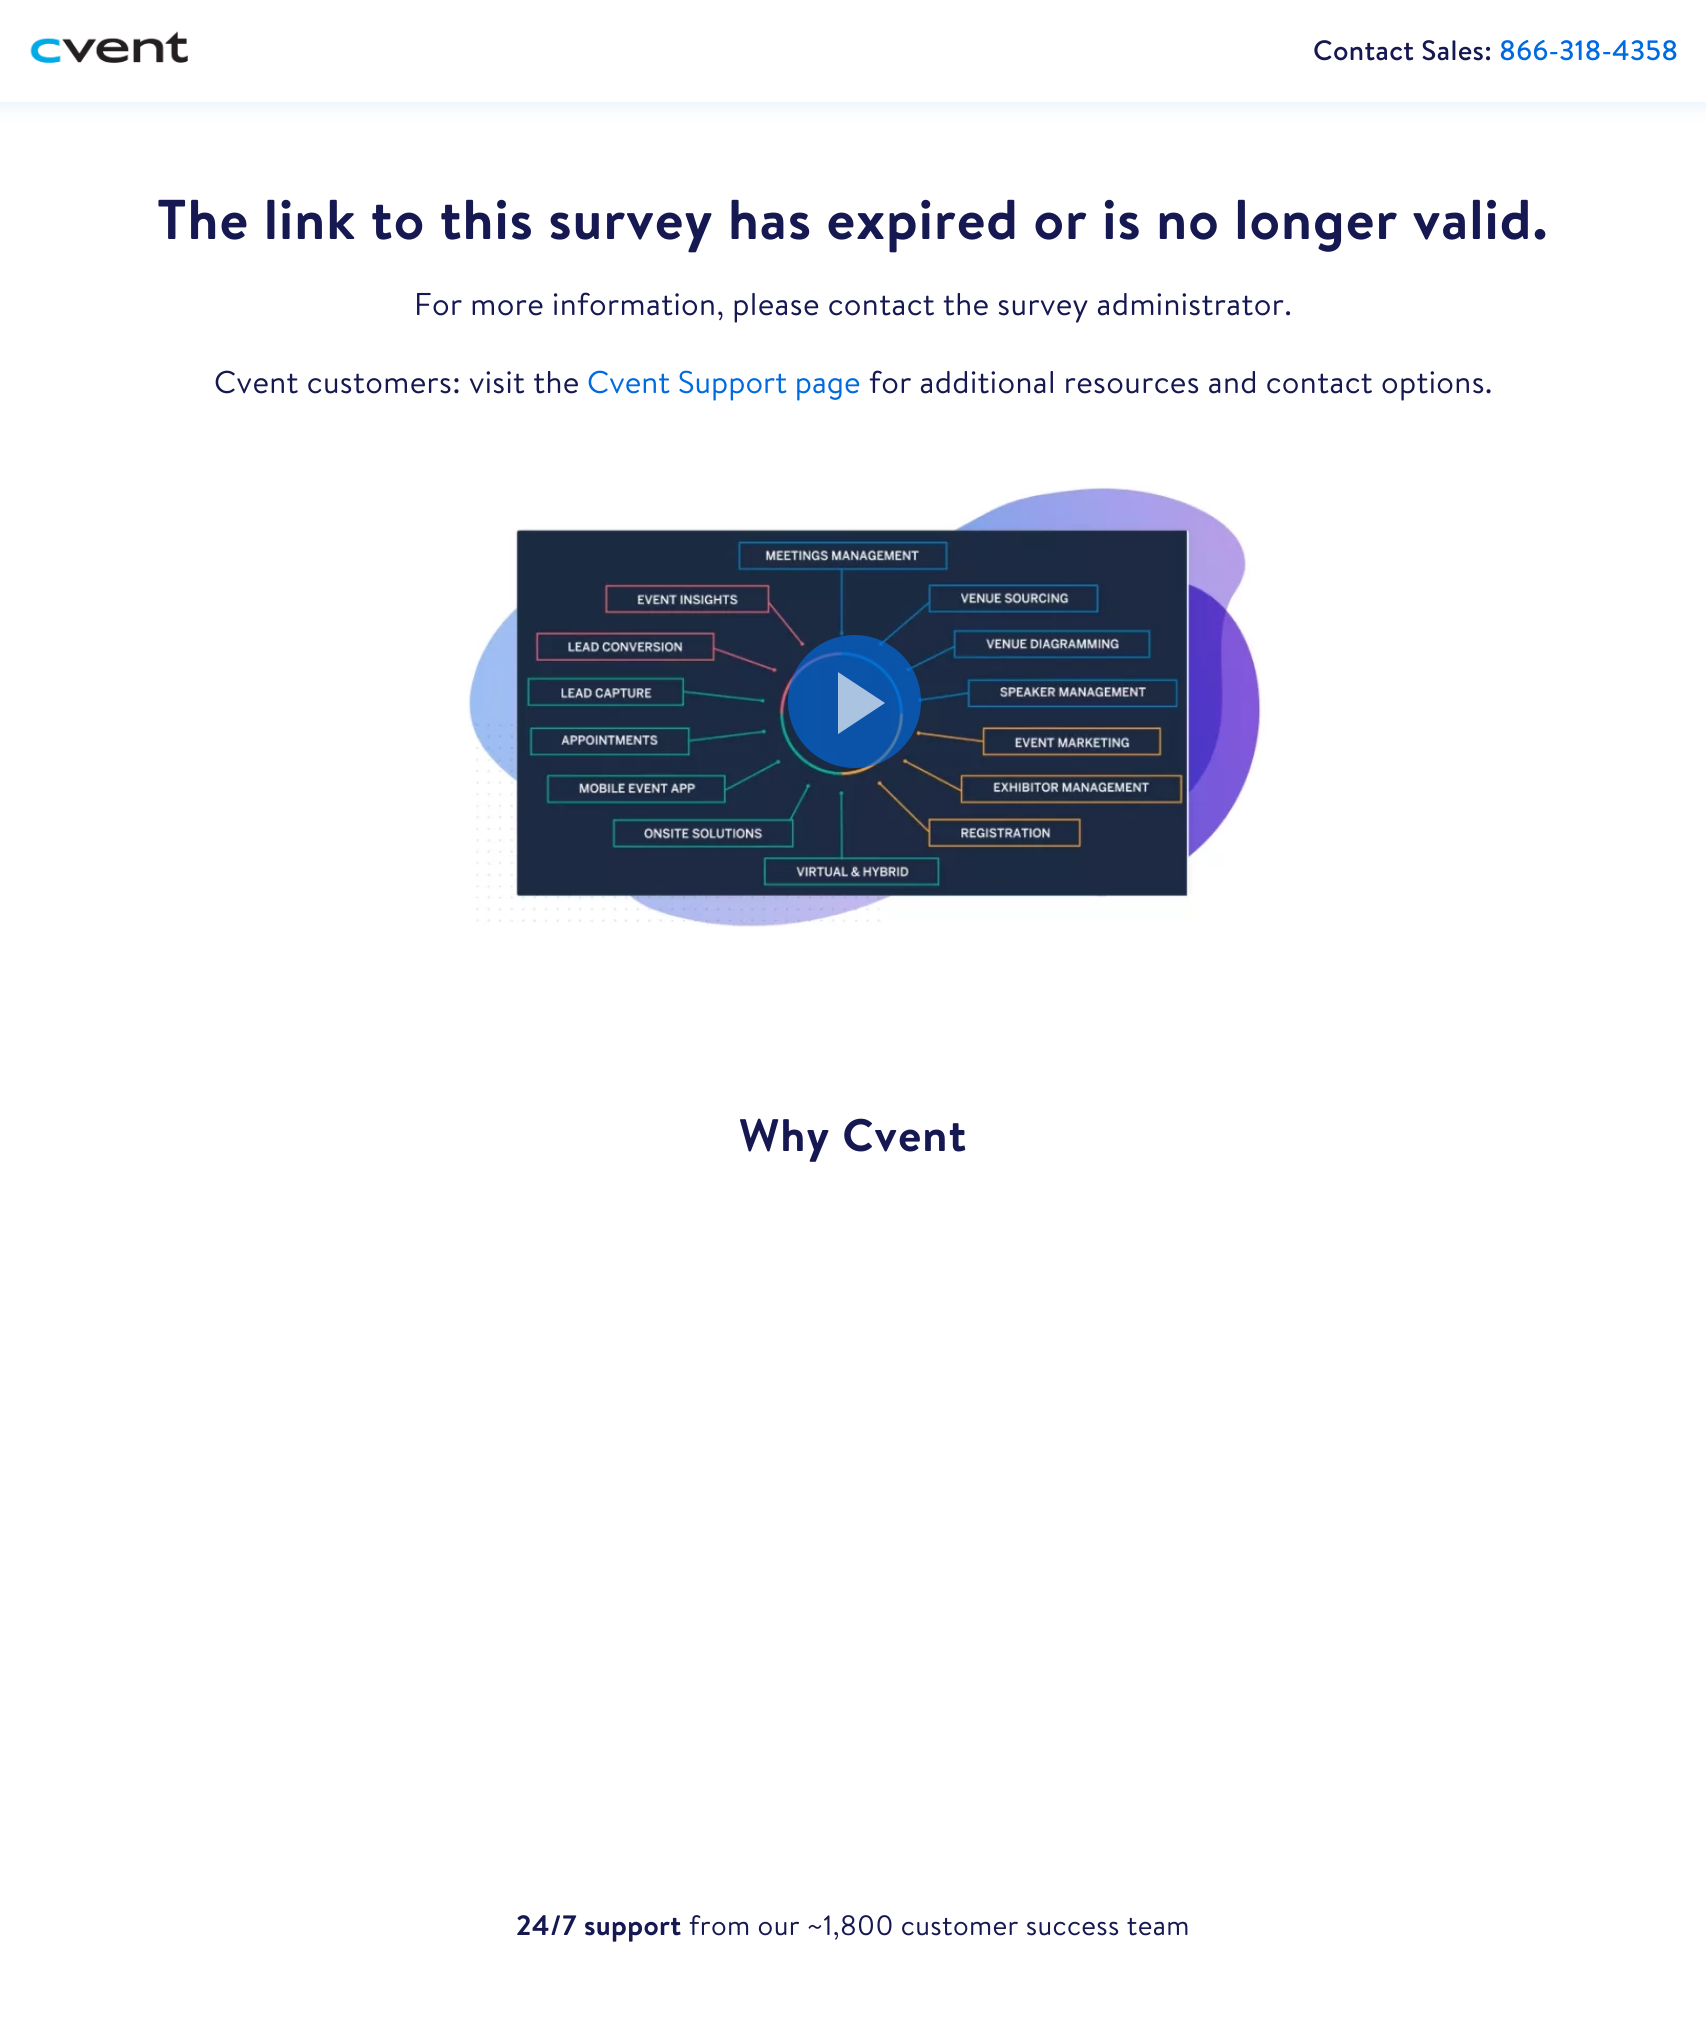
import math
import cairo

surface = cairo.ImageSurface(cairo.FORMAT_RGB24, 1706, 2031)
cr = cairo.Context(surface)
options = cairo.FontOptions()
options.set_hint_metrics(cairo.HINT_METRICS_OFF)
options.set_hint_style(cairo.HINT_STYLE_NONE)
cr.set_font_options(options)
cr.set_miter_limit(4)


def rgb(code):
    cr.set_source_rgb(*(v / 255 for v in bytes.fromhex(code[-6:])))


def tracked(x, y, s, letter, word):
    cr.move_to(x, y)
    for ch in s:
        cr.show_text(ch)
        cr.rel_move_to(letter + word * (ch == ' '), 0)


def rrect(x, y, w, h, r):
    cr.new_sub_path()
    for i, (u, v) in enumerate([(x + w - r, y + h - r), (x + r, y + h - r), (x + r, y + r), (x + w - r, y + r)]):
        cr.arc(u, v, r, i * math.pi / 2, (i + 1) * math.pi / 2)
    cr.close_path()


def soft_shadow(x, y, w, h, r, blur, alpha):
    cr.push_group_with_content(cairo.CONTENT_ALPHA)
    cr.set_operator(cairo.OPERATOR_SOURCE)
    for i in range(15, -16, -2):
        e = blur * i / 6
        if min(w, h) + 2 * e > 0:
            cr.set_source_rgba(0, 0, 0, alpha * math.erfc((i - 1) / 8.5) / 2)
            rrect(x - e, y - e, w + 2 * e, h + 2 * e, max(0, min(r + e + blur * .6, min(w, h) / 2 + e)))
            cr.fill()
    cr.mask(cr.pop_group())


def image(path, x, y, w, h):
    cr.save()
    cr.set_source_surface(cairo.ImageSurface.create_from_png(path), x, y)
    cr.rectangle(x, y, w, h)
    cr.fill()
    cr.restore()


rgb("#ffffff")
cr.paint()
rgb("#006ae1")
soft_shadow(-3, -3, 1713, 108, 0, 10.5, 0.1)
rgb("#ffffff")
cr.rectangle(0, 0, 1706, 102)
cr.fill()
image("img/1.png", 30, 31, 158, 33)
image("img/2.png", 467, 486, 799, 441)
cr.set_source_rgba(0, 0.416, 0.882, 0.65)
cr.arc(854.5, 701.5, 66.5, 0, 2 * math.pi)
cr.fill()
cr.save()
cr.rectangle(838, 669, 48, 70)
cr.clip()
rgb("#a9c3e1")
cr.new_path()
cr.move_to(809, 653)
cr.line_to(885, 703)
cr.line_to(811, 752)
cr.curve_to(781, 726, 780, 680, 809, 653)
cr.close_path()
cr.fill()
cr.restore()
cr.select_font_face("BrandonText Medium")
cr.set_font_size(28)
rgb("#161851")
tracked(1313, 60, "Contact Sales:", 0.35, 0)
rgb("#006ae1")
cr.move_to(1499, 60)
cr.show_text("866-318-4358")
cr.select_font_face("BrandonText", cairo.FONT_SLANT_NORMAL, cairo.FONT_WEIGHT_BOLD)
cr.set_font_size(56)
rgb("#161851")
tracked(157, 239, "The link to this survey has expired or is no longer valid.", 1.05, 0)
cr.select_font_face("BrandonText")
cr.set_font_size(31.5)
tracked(414, 315, "For more information, please contact the survey administrator.", 0.35, 0)
tracked(214, 393, "Cvent customers: visit the", 0.35, 0)
rgb("#006ae1")
cr.move_to(587, 393)
cr.show_text("Cvent Support page")
rgb("#161851")
tracked(869, 393, "for additional resources and contact options.", 0.35, 0)
cr.select_font_face("BrandonText", cairo.FONT_SLANT_NORMAL, cairo.FONT_WEIGHT_BOLD)
cr.set_font_size(45.5)
tracked(739, 1151, "Why Cvent", 1.05, 0)
cr.set_font_size(28)
tracked(516, 1935, "24/7 support", 0.35, 0)
cr.select_font_face("BrandonText")
tracked(689, 1935, "from our ~1,800 customer success team", 0.35, 0)
surface.write_to_png("page.png")
